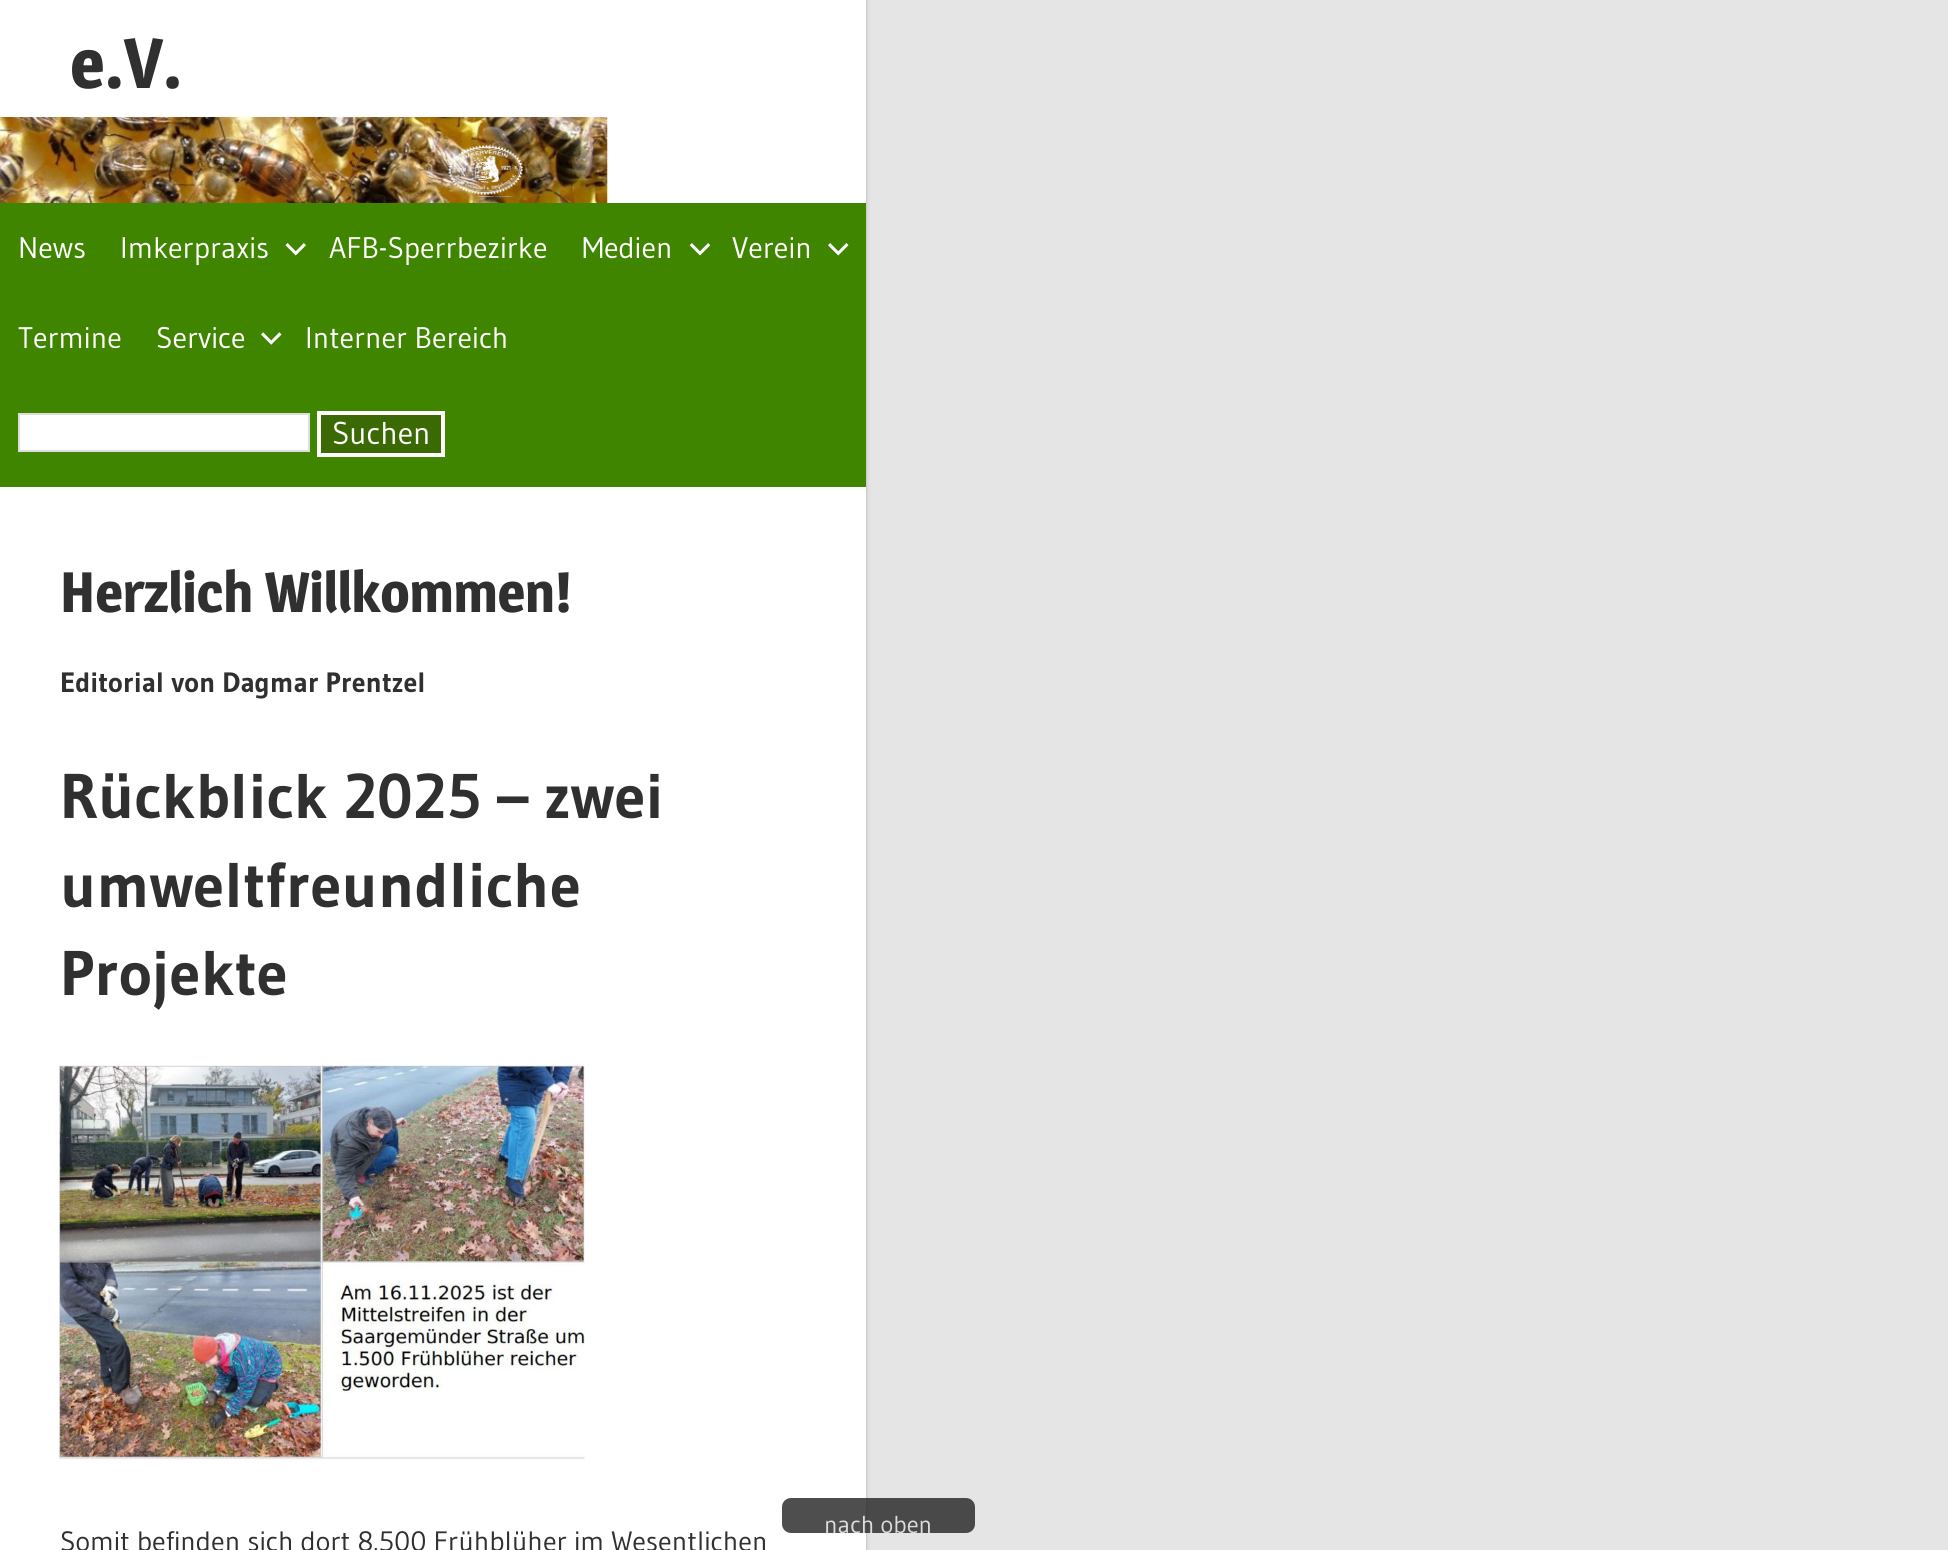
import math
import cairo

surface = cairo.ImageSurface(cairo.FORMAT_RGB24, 1948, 1550)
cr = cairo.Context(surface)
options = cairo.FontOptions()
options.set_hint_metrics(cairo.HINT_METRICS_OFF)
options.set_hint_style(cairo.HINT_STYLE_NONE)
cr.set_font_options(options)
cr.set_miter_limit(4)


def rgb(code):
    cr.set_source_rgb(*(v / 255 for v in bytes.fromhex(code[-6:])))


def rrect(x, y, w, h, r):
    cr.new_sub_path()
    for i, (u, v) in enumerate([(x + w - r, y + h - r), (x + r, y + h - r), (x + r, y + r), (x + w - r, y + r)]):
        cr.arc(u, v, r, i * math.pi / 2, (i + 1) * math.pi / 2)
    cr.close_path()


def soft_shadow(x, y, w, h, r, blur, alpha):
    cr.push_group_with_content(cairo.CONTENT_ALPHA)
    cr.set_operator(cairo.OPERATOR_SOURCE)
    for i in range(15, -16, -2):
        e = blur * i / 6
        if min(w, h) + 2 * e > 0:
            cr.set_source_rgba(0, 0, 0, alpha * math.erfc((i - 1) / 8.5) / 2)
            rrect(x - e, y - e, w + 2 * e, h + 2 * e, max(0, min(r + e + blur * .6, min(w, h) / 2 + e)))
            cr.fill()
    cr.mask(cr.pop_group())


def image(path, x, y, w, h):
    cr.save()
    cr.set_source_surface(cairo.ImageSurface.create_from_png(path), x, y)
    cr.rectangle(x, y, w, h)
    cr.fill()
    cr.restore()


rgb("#e5e5e5")
cr.paint()
rgb("#aaaaaa")
soft_shadow(0, -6, 866, 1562, 0, 2, 1)
rgb("#ffffff")
cr.rectangle(0, 0, 866, 1550)
cr.fill()
image("img/1.png", 0, 117, 608, 86)
rgb("#408500")
cr.rectangle(0, 203, 866, 284)
cr.fill()
image("img/2.png", 285, 243, 21, 13)
image("img/3.png", 689, 243, 22, 13)
image("img/4.png", 828, 243, 21, 13)
image("img/5.png", 261, 332, 21, 13)
rgb("#ffffff")
cr.rectangle(19, 414, 290, 37)
cr.fill_preserve()
rgb("#dddddd")
cr.stroke()
rgb("#3b6904")
cr.rectangle(319, 413, 124, 42)
cr.fill_preserve()
rgb("#ffffff")
cr.set_line_width(4)
cr.stroke()
image("img/6.png", 59, 1065, 526, 395)
cr.set_source_rgba(0.133, 0.133, 0.133, 0.8)
rrect(782, 1498, 193, 35, 9)
cr.fill()
cr.select_font_face("Magra", cairo.FONT_SLANT_NORMAL, cairo.FONT_WEIGHT_BOLD)
cr.set_font_size(70)
rgb("#303030")
cr.move_to(70, 88)
cr.show_text("e.V.")
cr.select_font_face("Gudea")
cr.set_font_size(29.75)
rgb("#ffffff")
for x, y, s in [
    (18, 258, "News"),
    (120, 258, "Imkerpraxis"),
    (329, 258, "AFB-Sperrbezirke"),
    (582, 258, "Medien"),
    (732, 258, "Verein"),
    (18, 348, "Termine"),
    (156, 348, "Service"),
    (305, 348, "Interner Bereich"),
]:
    cr.move_to(x, y)
    cr.show_text(s)
cr.set_font_size(31.5)
cr.move_to(332, 444)
cr.show_text("Suchen")
cr.select_font_face("Magra", cairo.FONT_SLANT_NORMAL, cairo.FONT_WEIGHT_BOLD)
cr.set_font_size(56)
rgb("#303030")
cr.move_to(60, 612)
cr.show_text("Herzlich Willkommen!")
cr.select_font_face("Gudea", cairo.FONT_SLANT_NORMAL, cairo.FONT_WEIGHT_BOLD)
cr.set_font_size(28)
cr.move_to(60, 692)
cr.show_text("Editorial von Dagmar Prentzel")
cr.set_font_size(63)
for x, y, s in [
    (60, 818, "Rückblick 2025 – zwei"),
    (60, 907, "umweltfreundliche"),
    (60, 995, "Projekte"),
]:
    cr.move_to(x, y)
    cr.show_text(s)
cr.select_font_face("Gudea")
cr.set_font_size(28)
cr.move_to(60, 1551)
cr.show_text("Somit befinden sich dort 8.500 Frühblüher im Wesentlichen")
cr.set_font_size(24.5)
rgb("#dcdcdc")
cr.move_to(824, 1533)
cr.show_text("nach oben")
surface.write_to_png("page.png")
